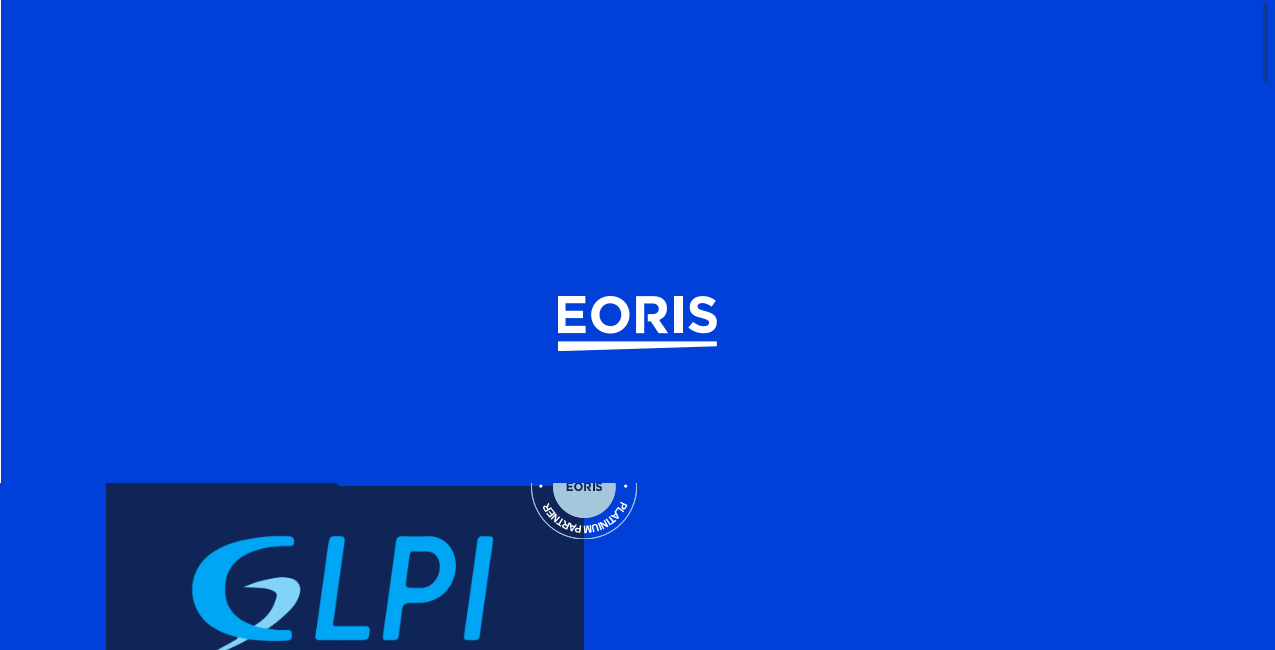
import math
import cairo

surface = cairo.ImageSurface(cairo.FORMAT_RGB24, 1275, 650)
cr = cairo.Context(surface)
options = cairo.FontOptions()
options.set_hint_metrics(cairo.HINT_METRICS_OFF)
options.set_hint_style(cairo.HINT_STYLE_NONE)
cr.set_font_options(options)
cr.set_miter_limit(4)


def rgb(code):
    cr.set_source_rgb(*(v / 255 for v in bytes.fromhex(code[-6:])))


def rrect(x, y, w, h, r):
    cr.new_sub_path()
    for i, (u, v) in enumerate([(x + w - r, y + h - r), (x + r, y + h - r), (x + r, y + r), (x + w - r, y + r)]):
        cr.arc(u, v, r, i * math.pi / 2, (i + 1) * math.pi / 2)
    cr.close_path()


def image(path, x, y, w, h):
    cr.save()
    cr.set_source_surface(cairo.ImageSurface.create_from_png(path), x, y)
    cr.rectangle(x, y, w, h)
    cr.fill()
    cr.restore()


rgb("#0040d9")
cr.paint()
rgb("#ffffff")
cr.rectangle(0, 0, 1, 483)
cr.fill()
rgb("#0f2457")
cr.rectangle(106, 486, 478, 164)
cr.fill()
cr.new_path()
cr.move_to(300, 447)
cr.line_to(301, 447)
cr.curve_to(303, 447, 305, 448, 307, 450)
cr.line_to(337, 484)
cr.curve_to(339, 486, 341, 487, 344, 487)
cr.line_to(383, 487)
cr.line_to(300, 487)
cr.close_path()
cr.fill()
rgb("#0040d9")
cr.rectangle(300, 447, 36, 36)
cr.fill()
image("img/1.png", 558, 296, 159, 55)
rgb("#113893")
rrect(1263, 2, 5, 80, 2.5)
cr.fill()
rgb("#0f2457")
cr.rectangle(106, 483, 194, 3)
cr.fill()
image("img/2.png", 531, 483, 106, 56)
image("img/3.png", 531, 483, 106, 56)
image("img/4.png", 191, 535, 303, 115)
surface.write_to_png("page.png")
